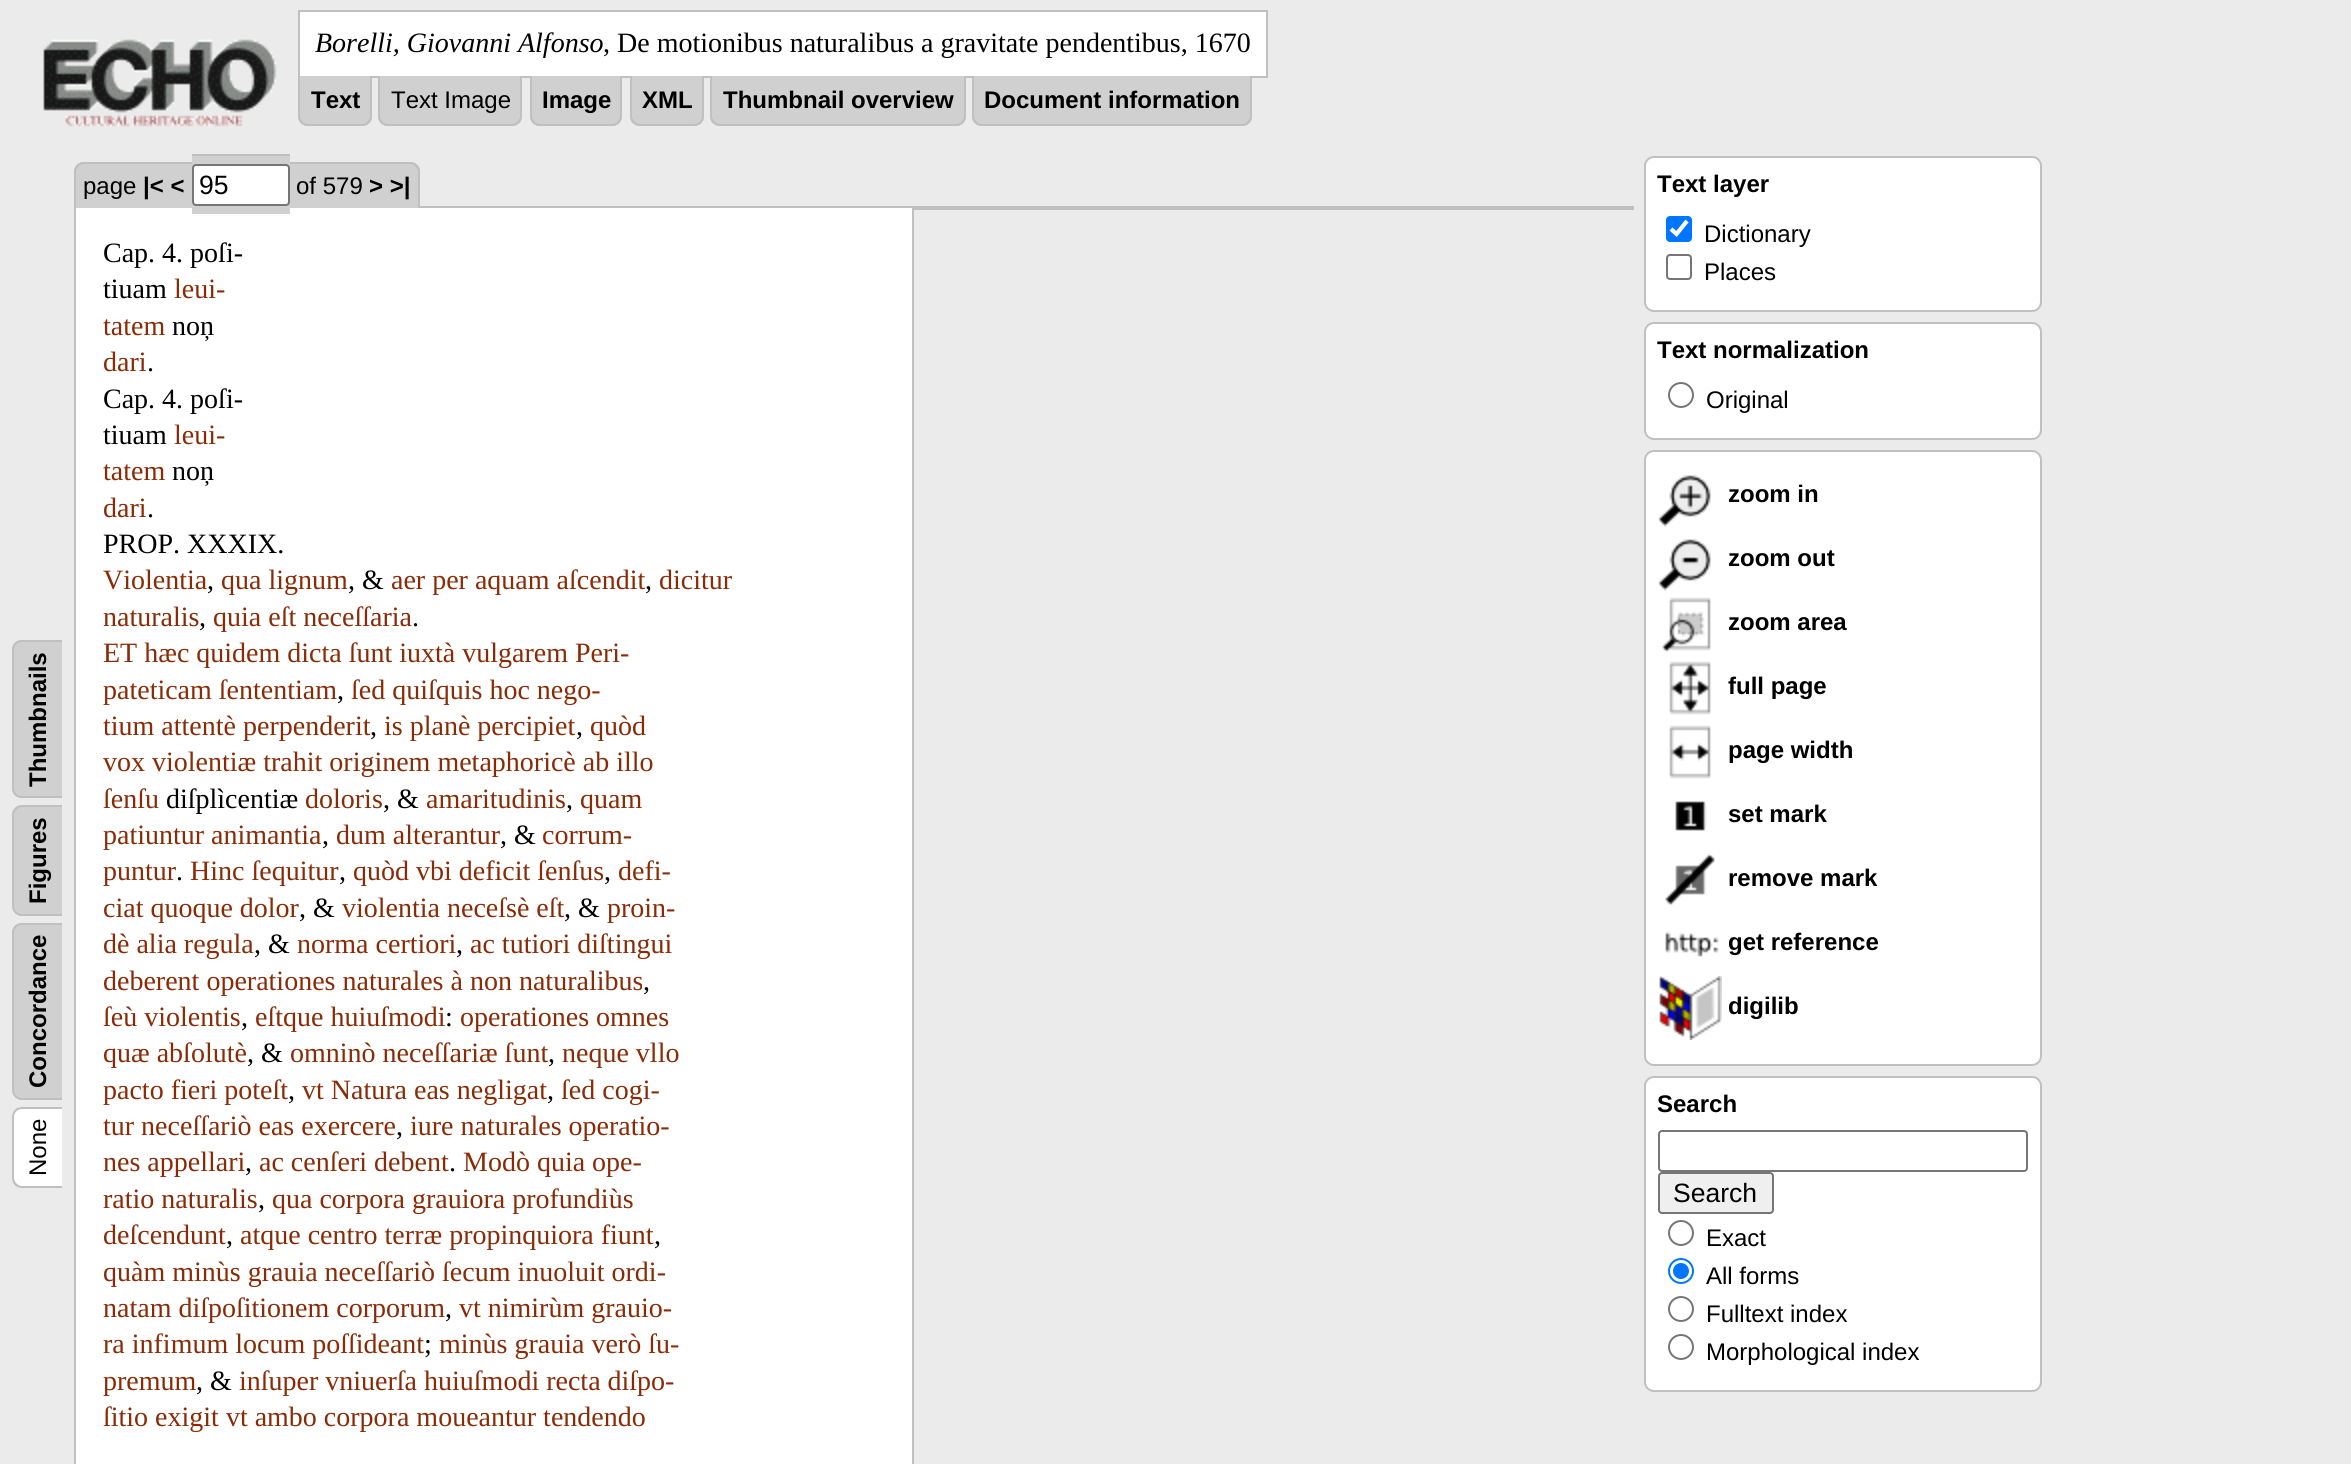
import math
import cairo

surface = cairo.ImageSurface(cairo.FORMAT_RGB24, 2351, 1464)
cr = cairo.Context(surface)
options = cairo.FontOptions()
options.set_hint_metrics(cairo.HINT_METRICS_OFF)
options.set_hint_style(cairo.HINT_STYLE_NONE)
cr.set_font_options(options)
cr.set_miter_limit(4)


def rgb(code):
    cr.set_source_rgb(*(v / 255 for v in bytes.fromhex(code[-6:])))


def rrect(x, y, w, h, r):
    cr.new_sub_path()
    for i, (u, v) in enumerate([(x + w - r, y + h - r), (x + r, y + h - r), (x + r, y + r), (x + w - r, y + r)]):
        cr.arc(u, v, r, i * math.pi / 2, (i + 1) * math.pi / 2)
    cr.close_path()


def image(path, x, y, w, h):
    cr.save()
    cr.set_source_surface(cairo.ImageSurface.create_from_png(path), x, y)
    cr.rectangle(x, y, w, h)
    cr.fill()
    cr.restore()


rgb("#ebebeb")
cr.paint()
image("img/1.png", 43, 39, 234, 88)
rgb("#ffffff")
cr.rectangle(299, 11, 968, 66)
cr.fill_preserve()
rgb("#c0c0c0")
cr.stroke()
rgb("#d0d0d0")
cr.new_path()
cr.move_to(298, 76)
cr.line_to(372, 76)
cr.line_to(372, 116)
cr.curve_to(372, 121.5, 367.5, 126, 362, 126)
cr.line_to(308, 126)
cr.curve_to(302.5, 126, 298, 121.5, 298, 116)
cr.close_path()
cr.fill()
rgb("#c0c0c0")
cr.set_fill_rule(cairo.FILL_RULE_EVEN_ODD)
cr.new_path()
cr.move_to(298, 76)
cr.line_to(372, 76)
cr.line_to(372, 116)
cr.curve_to(372, 122, 368, 126, 362, 126)
cr.line_to(308, 126)
cr.curve_to(302, 126, 298, 122, 298, 116)
cr.close_path()
cr.move_to(300, 76)
cr.line_to(370, 76)
cr.line_to(370, 116)
cr.curve_to(370, 120, 366, 124, 362, 124)
cr.line_to(308, 124)
cr.curve_to(304, 124, 300, 120, 300, 116)
cr.close_path()
cr.fill()
rgb("#d0d0d0")
cr.new_path()
cr.move_to(378, 76)
cr.line_to(522, 76)
cr.line_to(522, 116)
cr.curve_to(522, 121.5, 517.5, 126, 512, 126)
cr.line_to(388, 126)
cr.curve_to(382.5, 126, 378, 121.5, 378, 116)
cr.close_path()
cr.fill()
rgb("#c0c0c0")
cr.new_path()
cr.move_to(378, 76)
cr.line_to(522, 76)
cr.line_to(522, 116)
cr.curve_to(522, 122, 518, 126, 512, 126)
cr.line_to(388, 126)
cr.curve_to(382, 126, 378, 122, 378, 116)
cr.close_path()
cr.move_to(380, 76)
cr.line_to(520, 76)
cr.line_to(520, 116)
cr.curve_to(520, 120, 516, 124, 512, 124)
cr.line_to(388, 124)
cr.curve_to(384, 124, 380, 120, 380, 116)
cr.close_path()
cr.fill()
rgb("#d0d0d0")
cr.new_path()
cr.move_to(530, 76)
cr.line_to(622, 76)
cr.line_to(622, 116)
cr.curve_to(622, 121.5, 617.5, 126, 612, 126)
cr.line_to(540, 126)
cr.curve_to(534.5, 126, 530, 121.5, 530, 116)
cr.close_path()
cr.fill()
rgb("#c0c0c0")
cr.new_path()
cr.move_to(530, 76)
cr.line_to(622, 76)
cr.line_to(622, 116)
cr.curve_to(622, 122, 618, 126, 612, 126)
cr.line_to(540, 126)
cr.curve_to(534, 126, 530, 122, 530, 116)
cr.close_path()
cr.move_to(532, 76)
cr.line_to(620, 76)
cr.line_to(620, 116)
cr.curve_to(620, 120, 616, 124, 612, 124)
cr.line_to(540, 124)
cr.curve_to(536, 124, 532, 120, 532, 116)
cr.close_path()
cr.fill()
rgb("#d0d0d0")
cr.new_path()
cr.move_to(630, 76)
cr.line_to(704, 76)
cr.line_to(704, 116)
cr.curve_to(704, 121.5, 699.5, 126, 694, 126)
cr.line_to(640, 126)
cr.curve_to(634.5, 126, 630, 121.5, 630, 116)
cr.close_path()
cr.fill()
rgb("#c0c0c0")
cr.new_path()
cr.move_to(630, 76)
cr.line_to(704, 76)
cr.line_to(704, 116)
cr.curve_to(704, 122, 700, 126, 694, 126)
cr.line_to(640, 126)
cr.curve_to(634, 126, 630, 122, 630, 116)
cr.close_path()
cr.move_to(632, 76)
cr.line_to(702, 76)
cr.line_to(702, 116)
cr.curve_to(702, 120, 698, 124, 694, 124)
cr.line_to(640, 124)
cr.curve_to(636, 124, 632, 120, 632, 116)
cr.close_path()
cr.fill()
rgb("#d0d0d0")
cr.new_path()
cr.move_to(710, 76)
cr.line_to(966, 76)
cr.line_to(966, 116)
cr.curve_to(966, 121.5, 961.5, 126, 956, 126)
cr.line_to(720, 126)
cr.curve_to(714.5, 126, 710, 121.5, 710, 116)
cr.close_path()
cr.fill()
rgb("#c0c0c0")
cr.new_path()
cr.move_to(710, 76)
cr.line_to(966, 76)
cr.line_to(966, 116)
cr.curve_to(966, 122, 962, 126, 956, 126)
cr.line_to(720, 126)
cr.curve_to(714, 126, 710, 122, 710, 116)
cr.close_path()
cr.move_to(712, 76)
cr.line_to(964, 76)
cr.line_to(964, 116)
cr.curve_to(964, 120, 960, 124, 956, 124)
cr.line_to(720, 124)
cr.curve_to(716, 124, 712, 120, 712, 116)
cr.close_path()
cr.fill()
rgb("#d0d0d0")
cr.new_path()
cr.move_to(972, 76)
cr.line_to(1252, 76)
cr.line_to(1252, 116)
cr.curve_to(1252, 121.5, 1247.5, 126, 1242, 126)
cr.line_to(982, 126)
cr.curve_to(976.5, 126, 972, 121.5, 972, 116)
cr.close_path()
cr.fill()
rgb("#c0c0c0")
cr.new_path()
cr.move_to(972, 76)
cr.line_to(1252, 76)
cr.line_to(1252, 116)
cr.curve_to(1252, 122, 1248, 126, 1242, 126)
cr.line_to(982, 126)
cr.curve_to(976, 126, 972, 122, 972, 116)
cr.close_path()
cr.move_to(974, 76)
cr.line_to(1250, 76)
cr.line_to(1250, 116)
cr.curve_to(1250, 120, 1246, 124, 1242, 124)
cr.line_to(982, 124)
cr.curve_to(978, 124, 974, 120, 974, 116)
cr.close_path()
cr.fill()
rgb("#d0d0d0")
cr.set_fill_rule(cairo.FILL_RULE_WINDING)
cr.new_path()
cr.move_to(12, 788)
cr.line_to(12, 650)
cr.curve_to(12, 644, 16, 640, 22, 640)
cr.line_to(62, 640)
cr.line_to(62, 798)
cr.line_to(22, 798)
cr.curve_to(16, 798, 12, 794, 12, 788)
cr.close_path()
cr.fill()
rgb("#c0c0c0")
cr.set_fill_rule(cairo.FILL_RULE_EVEN_ODD)
cr.new_path()
cr.move_to(12, 788)
cr.line_to(12, 650)
cr.curve_to(12, 644, 16, 640, 22, 640)
cr.line_to(62, 640)
cr.line_to(62, 798)
cr.line_to(22, 798)
cr.curve_to(16, 798, 12, 794, 12, 788)
cr.close_path()
cr.move_to(14, 788)
cr.line_to(14, 650)
cr.curve_to(14, 645, 18, 642, 22, 642)
cr.line_to(62, 642)
cr.line_to(62, 796)
cr.line_to(22, 796)
cr.curve_to(18, 796, 14, 793, 14, 788)
cr.close_path()
cr.fill()
rgb("#d0d0d0")
cr.set_fill_rule(cairo.FILL_RULE_WINDING)
cr.new_path()
cr.move_to(12, 906)
cr.line_to(12, 815)
cr.curve_to(12, 810, 16, 805, 22, 805)
cr.line_to(62, 805)
cr.line_to(62, 916)
cr.line_to(22, 916)
cr.curve_to(16, 916, 12, 911, 12, 906)
cr.close_path()
cr.fill()
rgb("#c0c0c0")
cr.set_fill_rule(cairo.FILL_RULE_EVEN_ODD)
cr.new_path()
cr.move_to(12, 906)
cr.line_to(12, 815)
cr.curve_to(12, 810, 16, 805, 22, 805)
cr.line_to(62, 805)
cr.line_to(62, 916)
cr.line_to(22, 916)
cr.curve_to(16, 916, 12, 911, 12, 906)
cr.close_path()
cr.move_to(14, 906)
cr.line_to(14, 815)
cr.curve_to(14, 811, 18, 807, 22, 807)
cr.line_to(62, 807)
cr.line_to(62, 914)
cr.line_to(22, 914)
cr.curve_to(18, 914, 14, 910, 14, 906)
cr.close_path()
cr.fill()
rgb("#d0d0d0")
cr.set_fill_rule(cairo.FILL_RULE_WINDING)
cr.new_path()
cr.move_to(12, 1090)
cr.line_to(12, 933)
cr.curve_to(12, 927, 16, 923, 22, 923)
cr.line_to(62, 923)
cr.line_to(62, 1100)
cr.line_to(22, 1100)
cr.curve_to(16, 1100, 12, 1095, 12, 1090)
cr.close_path()
cr.fill()
rgb("#c0c0c0")
cr.set_fill_rule(cairo.FILL_RULE_EVEN_ODD)
cr.new_path()
cr.move_to(12, 1090)
cr.line_to(12, 933)
cr.curve_to(12, 927, 16, 923, 22, 923)
cr.line_to(62, 923)
cr.line_to(62, 1100)
cr.line_to(22, 1100)
cr.curve_to(16, 1100, 12, 1095, 12, 1090)
cr.close_path()
cr.move_to(14, 1090)
cr.line_to(14, 933)
cr.curve_to(14, 928, 18, 925, 22, 925)
cr.line_to(62, 925)
cr.line_to(62, 1098)
cr.line_to(22, 1098)
cr.curve_to(18, 1098, 14, 1094, 14, 1090)
cr.close_path()
cr.fill()
rgb("#ffffff")
cr.set_fill_rule(cairo.FILL_RULE_WINDING)
cr.new_path()
cr.move_to(12, 1178)
cr.line_to(12, 1117)
cr.curve_to(12, 1111, 16, 1107, 22, 1107)
cr.line_to(62, 1107)
cr.line_to(62, 1188)
cr.line_to(22, 1188)
cr.curve_to(16, 1188, 12, 1184, 12, 1178)
cr.close_path()
cr.fill()
rgb("#c0c0c0")
cr.set_fill_rule(cairo.FILL_RULE_EVEN_ODD)
cr.new_path()
cr.move_to(12, 1178)
cr.line_to(12, 1117)
cr.curve_to(12, 1111, 16, 1107, 22, 1107)
cr.line_to(62, 1107)
cr.line_to(62, 1188)
cr.line_to(22, 1188)
cr.curve_to(16, 1188, 12, 1184, 12, 1178)
cr.close_path()
cr.move_to(14, 1178)
cr.line_to(14, 1117)
cr.curve_to(14, 1112, 18, 1109, 22, 1109)
cr.line_to(62, 1109)
cr.line_to(62, 1186)
cr.line_to(22, 1186)
cr.curve_to(18, 1186, 14, 1182, 14, 1178)
cr.close_path()
cr.fill()
rgb("#ffffff")
cr.rectangle(75, 207, 838, 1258)
cr.fill_preserve()
rgb("#c0c0c0")
cr.stroke()
rgb("#d0d0d0")
cr.new_path()
cr.move_to(84, 162)
cr.line_to(144, 162)
cr.line_to(144, 208)
cr.line_to(74, 208)
cr.line_to(74, 172)
cr.curve_to(74, 166.5, 78.5, 162, 84, 162)
cr.close_path()
cr.fill()
rgb("#c0c0c0")
cr.new_path()
cr.move_to(84, 162)
cr.line_to(144, 162)
cr.line_to(144, 208)
cr.line_to(74, 208)
cr.line_to(74, 172)
cr.curve_to(74, 166, 78, 162, 84, 162)
cr.close_path()
cr.move_to(84, 164)
cr.line_to(144, 164)
cr.line_to(144, 208)
cr.line_to(76, 208)
cr.line_to(76, 172)
cr.curve_to(76, 168, 80, 164, 84, 164)
cr.close_path()
cr.fill()
for x, y, w, h, color in [
    (144, 164, 20, 44, "#d0d0d0"),
    (144, 162, 20, 2, "#c0c0c0"),
    (164, 162, 6, 46, "#d0d0d0"),
    (164, 162, 20, 2, "#c0c0c0"),
    (170, 164, 14, 44, "#d0d0d0"),
    (184, 162, 8, 46, "#d0d0d0"),
    (184, 162, 8, 2, "#c0c0c0"),
    (192, 156, 98, 58, "#d0d0d0"),
    (192, 154, 98, 2, "#c0c0c0"),
    (290, 162, 6, 46, "#d0d0d0"),
    (290, 162, 94, 2, "#c0c0c0"),
    (296, 164, 88, 44, "#d0d0d0"),
    (384, 162, 6, 46, "#d0d0d0"),
    (384, 162, 6, 2, "#c0c0c0"),
]:
    rgb(color)
    cr.rectangle(x, y, w, h)
    cr.fill()
rgb("#d0d0d0")
cr.new_path()
cr.move_to(390, 162)
cr.line_to(410, 162)
cr.curve_to(415.5, 162, 420, 166.5, 420, 172)
cr.line_to(420, 208)
cr.line_to(390, 208)
cr.close_path()
cr.fill()
rgb("#c0c0c0")
cr.new_path()
cr.move_to(390, 162)
cr.line_to(410, 162)
cr.curve_to(416, 162, 420, 166, 420, 172)
cr.line_to(420, 208)
cr.line_to(390, 208)
cr.close_path()
cr.move_to(390, 164)
cr.line_to(410, 164)
cr.curve_to(414, 164, 418, 168, 418, 172)
cr.line_to(418, 208)
cr.line_to(390, 208)
cr.close_path()
cr.fill()
rgb("#ffffff")
rrect(193, 165, 96, 40, 3)
cr.fill_preserve()
rgb("#767676")
cr.stroke()
rgb("#c0c0c0")
cr.rectangle(914, 206, 720, 4)
cr.fill()
rgb("#ffffff")
rrect(1645, 157, 396, 154, 9)
cr.fill_preserve()
rgb("#c0c0c0")
cr.stroke()
rgb("#0075ff")
rrect(1666, 216, 26, 26, 4)
cr.fill()
cr.new_path()
cr.move_to(1671, 229)
cr.line_to(1676.5, 234)
cr.line_to(1687, 221)
rgb("#ffffff")
cr.set_line_width(4.2)
cr.stroke()
rrect(1667, 255, 24, 24, 3)
rgb("#767676")
cr.set_line_width(2)
cr.stroke()
rgb("#ffffff")
rrect(1645, 323, 396, 116, 9)
cr.fill_preserve()
rgb("#c0c0c0")
cr.stroke()
cr.arc(1681, 395, 12, 0, 2 * math.pi)
rgb("#767676")
cr.stroke()
rgb("#ffffff")
rrect(1645, 451, 396, 614, 9)
cr.fill_preserve()
rgb("#c0c0c0")
cr.stroke()
image("img/2.png", 1658, 475, 53, 52)
image("img/3.png", 1658, 539, 53, 52)
image("img/4.png", 1661, 597, 50, 56)
image("img/5.png", 1669, 661, 42, 54)
image("img/6.png", 1669, 725, 42, 54)
image("img/7.png", 1675, 801, 32, 30)
image("img/8.png", 1665, 853, 50, 52)
image("img/9.png", 1665, 931, 54, 26)
image("img/10.png", 1659, 976, 63, 64)
rgb("#ffffff")
rrect(1645, 1077, 396, 314, 9)
cr.fill_preserve()
rgb("#c0c0c0")
cr.stroke()
rrect(1659, 1131, 368, 40, 3)
rgb("#767676")
cr.stroke()
rgb("#efefef")
rrect(1659, 1173, 114, 40, 3)
cr.fill_preserve()
rgb("#767676")
cr.stroke()
cr.arc(1681, 1233, 12, 0, 2 * math.pi)
cr.stroke()
cr.arc(1681, 1271, 12, 0, 2 * math.pi)
rgb("#0075ff")
cr.stroke()
cr.arc(1681, 1271, 8, 0, 2 * math.pi)
cr.fill()
cr.arc(1681, 1309, 12, 0, 2 * math.pi)
rgb("#767676")
cr.stroke()
cr.arc(1681, 1347, 12, 0, 2 * math.pi)
cr.stroke()
cr.select_font_face("Liberation Serif", cairo.FONT_SLANT_ITALIC)
cr.set_font_size(28)
rgb("#000000")
cr.move_to(315, 52)
cr.show_text("Borelli, Giovanni Alfonso")
cr.select_font_face("Liberation Serif")
cr.move_to(603, 52)
cr.show_text(", De motionibus naturalibus a gravitate pendentibus, 1670")
cr.select_font_face("Liberation Sans", cairo.FONT_SLANT_NORMAL, cairo.FONT_WEIGHT_BOLD)
cr.set_font_size(24)
cr.move_to(311, 108)
cr.show_text("Text")
cr.select_font_face("Liberation Sans")
cr.move_to(391, 108)
cr.show_text("Text Image")
cr.select_font_face("Liberation Sans", cairo.FONT_SLANT_NORMAL, cairo.FONT_WEIGHT_BOLD)
for x, y, s in [
    (542, 108, "Image"),
    (642, 108, "XML"),
    (723, 108, "Thumbnail overview"),
    (984, 108, "Document information"),
]:
    cr.move_to(x, y)
    cr.show_text(s)
cr.save()
cr.translate(46, 787)
cr.rotate(-90 * math.pi / 180)
cr.move_to(0, 0)
cr.show_text("Thumbnails")
cr.restore()
cr.save()
cr.translate(46, 904)
cr.rotate(-90 * math.pi / 180)
cr.move_to(0, 0)
cr.show_text("Figures")
cr.restore()
cr.save()
cr.translate(46, 1088)
cr.rotate(-90 * math.pi / 180)
cr.move_to(0, 0)
cr.show_text("Concordance")
cr.restore()
cr.select_font_face("Liberation Sans")
cr.save()
cr.translate(46, 1176)
cr.rotate(-90 * math.pi / 180)
cr.move_to(0, 0)
cr.show_text("None")
cr.restore()
cr.move_to(83, 194)
cr.show_text("page")
cr.select_font_face("Liberation Sans", cairo.FONT_SLANT_NORMAL, cairo.FONT_WEIGHT_BOLD)
cr.move_to(143, 194)
cr.show_text("|< <")
cr.select_font_face("Liberation Sans")
cr.set_font_size(26.5)
cr.move_to(199, 194)
cr.show_text("95")
cr.set_font_size(24)
cr.move_to(296, 194)
cr.show_text("of 579")
cr.select_font_face("Liberation Sans", cairo.FONT_SLANT_NORMAL, cairo.FONT_WEIGHT_BOLD)
cr.move_to(369, 194)
cr.show_text("> >|")
cr.select_font_face("Liberation Serif")
cr.set_font_size(28)
cr.move_to(103, 262)
cr.show_text("Cap. 4. poſi-")
cr.move_to(103, 298)
cr.show_text("tiuam")
rgb("#892b06")
cr.move_to(174, 298)
cr.show_text("leui-")
cr.move_to(103, 335)
cr.show_text("tatem")
rgb("#000000")
cr.move_to(172, 335)
cr.show_text("noņ")
rgb("#892b06")
cr.move_to(103, 371)
cr.show_text("dari")
rgb("#000000")
for x, y, s in [
    (147, 371, "."),
    (103, 408, "Cap. 4. poſi-"),
    (103, 444, "tiuam"),
]:
    cr.move_to(x, y)
    cr.show_text(s)
rgb("#892b06")
cr.move_to(174, 444)
cr.show_text("leui-")
cr.move_to(103, 480)
cr.show_text("tatem")
rgb("#000000")
cr.move_to(172, 480)
cr.show_text("noņ")
rgb("#892b06")
cr.move_to(103, 517)
cr.show_text("dari")
rgb("#000000")
cr.move_to(147, 517)
cr.show_text(".")
cr.move_to(103, 553)
cr.show_text("PROP. XXXIX.")
rgb("#892b06")
cr.move_to(103, 589)
cr.show_text("Violentia")
rgb("#000000")
cr.move_to(207, 589)
cr.show_text(",")
rgb("#892b06")
cr.move_to(221, 589)
cr.show_text("qua lignum")
rgb("#000000")
cr.move_to(348, 589)
cr.show_text(", &")
rgb("#892b06")
cr.move_to(391, 589)
cr.show_text("aer per aquam aſcendit")
rgb("#000000")
cr.move_to(645, 589)
cr.show_text(",")
rgb("#892b06")
cr.move_to(659, 589)
cr.show_text("dicitur")
cr.move_to(103, 626)
cr.show_text("naturalis")
rgb("#000000")
cr.move_to(199, 626)
cr.show_text(",")
rgb("#892b06")
cr.move_to(213, 626)
cr.show_text("quia eſt neceſſaria")
rgb("#000000")
cr.move_to(412, 626)
cr.show_text(".")
rgb("#892b06")
cr.move_to(103, 662)
cr.show_text("ET hæc quidem dicta ſunt iuxtà vulgarem Peri-")
cr.move_to(103, 699)
cr.show_text("pateticam ſententiam")
rgb("#000000")
cr.move_to(337, 699)
cr.show_text(",")
rgb("#892b06")
cr.move_to(351, 699)
cr.show_text("ſed quiſquis hoc nego-")
cr.move_to(103, 735)
cr.show_text("tium attentè perpenderit")
rgb("#000000")
cr.move_to(370, 735)
cr.show_text(",")
rgb("#892b06")
cr.move_to(384, 735)
cr.show_text("is planè percipiet")
rgb("#000000")
cr.move_to(576, 735)
cr.show_text(",")
rgb("#892b06")
for x, y, s in [
    (590, 735, "quòd"),
    (103, 771, "vox violentiæ trahit originem metaphoricè ab illo"),
    (103, 808, "ſenſu"),
]:
    cr.move_to(x, y)
    cr.show_text(s)
rgb("#000000")
cr.move_to(166, 808)
cr.show_text("diſplìcentiæ")
rgb("#892b06")
cr.move_to(305, 808)
cr.show_text("doloris")
rgb("#000000")
cr.move_to(383, 808)
cr.show_text(", &")
rgb("#892b06")
cr.move_to(426, 808)
cr.show_text("amaritudinis")
rgb("#000000")
cr.move_to(566, 808)
cr.show_text(",")
rgb("#892b06")
cr.move_to(580, 808)
cr.show_text("quam")
cr.move_to(103, 844)
cr.show_text("patiuntur animantia")
rgb("#000000")
cr.move_to(322, 844)
cr.show_text(",")
rgb("#892b06")
cr.move_to(336, 844)
cr.show_text("dum alterantur")
rgb("#000000")
cr.move_to(500, 844)
cr.show_text(", &")
rgb("#892b06")
cr.move_to(542, 844)
cr.show_text("corrum-")
cr.move_to(103, 880)
cr.show_text("puntur")
rgb("#000000")
cr.move_to(176, 880)
cr.show_text(".")
rgb("#892b06")
cr.move_to(190, 880)
cr.show_text("Hinc ſequitur")
rgb("#000000")
cr.move_to(339, 880)
cr.show_text(",")
rgb("#892b06")
cr.move_to(353, 880)
cr.show_text("quòd vbi deficit ſenſus")
rgb("#000000")
cr.move_to(604, 880)
cr.show_text(",")
rgb("#892b06")
cr.move_to(618, 880)
cr.show_text("defi-")
cr.move_to(103, 917)
cr.show_text("ciat quoque dolor")
rgb("#000000")
cr.move_to(299, 917)
cr.show_text(", &")
rgb("#892b06")
cr.move_to(342, 917)
cr.show_text("violentia neceſsè eſt")
rgb("#000000")
cr.move_to(564, 917)
cr.show_text(", &")
rgb("#892b06")
cr.move_to(607, 917)
cr.show_text("proin-")
cr.move_to(103, 953)
cr.show_text("dè alia regula")
rgb("#000000")
cr.move_to(254, 953)
cr.show_text(", &")
rgb("#892b06")
cr.move_to(297, 953)
cr.show_text("norma certiori")
rgb("#000000")
cr.move_to(456, 953)
cr.show_text(",")
rgb("#892b06")
cr.move_to(470, 953)
cr.show_text("ac tutiori diſtingui")
cr.move_to(103, 990)
cr.show_text("deberent operationes naturales à non naturalibus")
rgb("#000000")
cr.move_to(643, 990)
cr.show_text(",")
rgb("#892b06")
cr.move_to(103, 1026)
cr.show_text("ſeù violentis")
rgb("#000000")
cr.move_to(241, 1026)
cr.show_text(",")
rgb("#892b06")
cr.move_to(255, 1026)
cr.show_text("eſtque huiuſmodi")
rgb("#000000")
cr.move_to(445, 1026)
cr.show_text(":")
rgb("#892b06")
cr.move_to(460, 1026)
cr.show_text("operationes omnes")
cr.move_to(103, 1062)
cr.show_text("quæ abſolutè")
rgb("#000000")
cr.move_to(247, 1062)
cr.show_text(", &")
rgb("#892b06")
cr.move_to(290, 1062)
cr.show_text("omninò neceſſariæ ſunt")
rgb("#000000")
cr.move_to(548, 1062)
cr.show_text(",")
rgb("#892b06")
cr.move_to(562, 1062)
cr.show_text("neque vllo")
cr.move_to(103, 1099)
cr.show_text("pacto fieri poteſt")
rgb("#000000")
cr.move_to(288, 1099)
cr.show_text(",")
rgb("#892b06")
cr.move_to(302, 1099)
cr.show_text("vt Natura eas negligat")
rgb("#000000")
cr.move_to(547, 1099)
cr.show_text(",")
rgb("#892b06")
cr.move_to(561, 1099)
cr.show_text("ſed cogi-")
cr.move_to(103, 1135)
cr.show_text("tur neceſſariò eas exercere")
rgb("#000000")
cr.move_to(396, 1135)
cr.show_text(",")
rgb("#892b06")
cr.move_to(410, 1135)
cr.show_text("iure naturales operatio-")
cr.move_to(103, 1171)
cr.show_text("nes appellari")
rgb("#000000")
cr.move_to(245, 1171)
cr.show_text(",")
rgb("#892b06")
cr.move_to(259, 1171)
cr.show_text("ac cenſeri debent")
rgb("#000000")
cr.move_to(449, 1171)
cr.show_text(".")
rgb("#892b06")
cr.move_to(463, 1171)
cr.show_text("Modò quia ope-")
cr.move_to(103, 1208)
cr.show_text("ratio naturalis")
rgb("#000000")
cr.move_to(258, 1208)
cr.show_text(",")
rgb("#892b06")
cr.move_to(272, 1208)
cr.show_text("qua corpora grauiora profundiùs")
cr.move_to(103, 1244)
cr.show_text("deſcendunt")
rgb("#000000")
cr.move_to(226, 1244)
cr.show_text(",")
rgb("#892b06")
cr.move_to(240, 1244)
cr.show_text("atque centro terræ propinquiora fiunt")
rgb("#000000")
cr.move_to(654, 1244)
cr.show_text(",")
rgb("#892b06")
cr.move_to(103, 1281)
cr.show_text("quàm minùs grauia neceſſariò ſecum inuoluit ordi-")
cr.move_to(103, 1317)
cr.show_text("natam diſpoſitionem corporum")
rgb("#000000")
cr.move_to(445, 1317)
cr.show_text(",")
rgb("#892b06")
cr.move_to(459, 1317)
cr.show_text("vt nimirùm grauio-")
cr.move_to(103, 1353)
cr.show_text("ra infimum locum poſſideant")
rgb("#000000")
cr.move_to(424, 1353)
cr.show_text(";")
rgb("#892b06")
cr.move_to(439, 1353)
cr.show_text("minùs grauia verò ſu-")
cr.move_to(103, 1390)
cr.show_text("premum")
rgb("#000000")
cr.move_to(196, 1390)
cr.show_text(", &")
rgb("#892b06")
cr.move_to(239, 1390)
cr.show_text("inſuper vniuerſa huiuſmodi recta diſpo-")
cr.move_to(103, 1426)
cr.show_text("ſitio exigit vt ambo corpora moueantur tendendo")
cr.select_font_face("Liberation Sans", cairo.FONT_SLANT_NORMAL, cairo.FONT_WEIGHT_BOLD)
cr.set_font_size(24)
rgb("#000000")
cr.move_to(1657, 192)
cr.show_text("Text layer")
cr.select_font_face("Liberation Sans")
cr.move_to(1704, 242)
cr.show_text("Dictionary")
cr.move_to(1704, 280)
cr.show_text("Places")
cr.select_font_face("Liberation Sans", cairo.FONT_SLANT_NORMAL, cairo.FONT_WEIGHT_BOLD)
cr.move_to(1657, 358)
cr.show_text("Text normalization")
cr.select_font_face("Liberation Sans")
cr.move_to(1706, 408)
cr.show_text("Original")
cr.select_font_face("Liberation Sans", cairo.FONT_SLANT_NORMAL, cairo.FONT_WEIGHT_BOLD)
for x, y, s in [
    (1728, 502, "zoom in"),
    (1728, 566, "zoom out"),
    (1728, 630, "zoom area"),
    (1728, 694, "full page"),
    (1728, 758, "page width"),
    (1728, 822, "set mark"),
    (1728, 886, "remove mark"),
    (1728, 950, "get reference"),
    (1728, 1014, "digilib"),
    (1657, 1112, "Search"),
]:
    cr.move_to(x, y)
    cr.show_text(s)
cr.select_font_face("Liberation Sans")
cr.set_font_size(26.5)
cr.move_to(1673, 1202)
cr.show_text("Search")
cr.set_font_size(24)
for x, y, s in [
    (1706, 1246, "Exact"),
    (1706, 1284, "All forms"),
    (1706, 1322, "Fulltext index"),
    (1706, 1360, "Morphological index"),
]:
    cr.move_to(x, y)
    cr.show_text(s)
surface.write_to_png("page.png")
